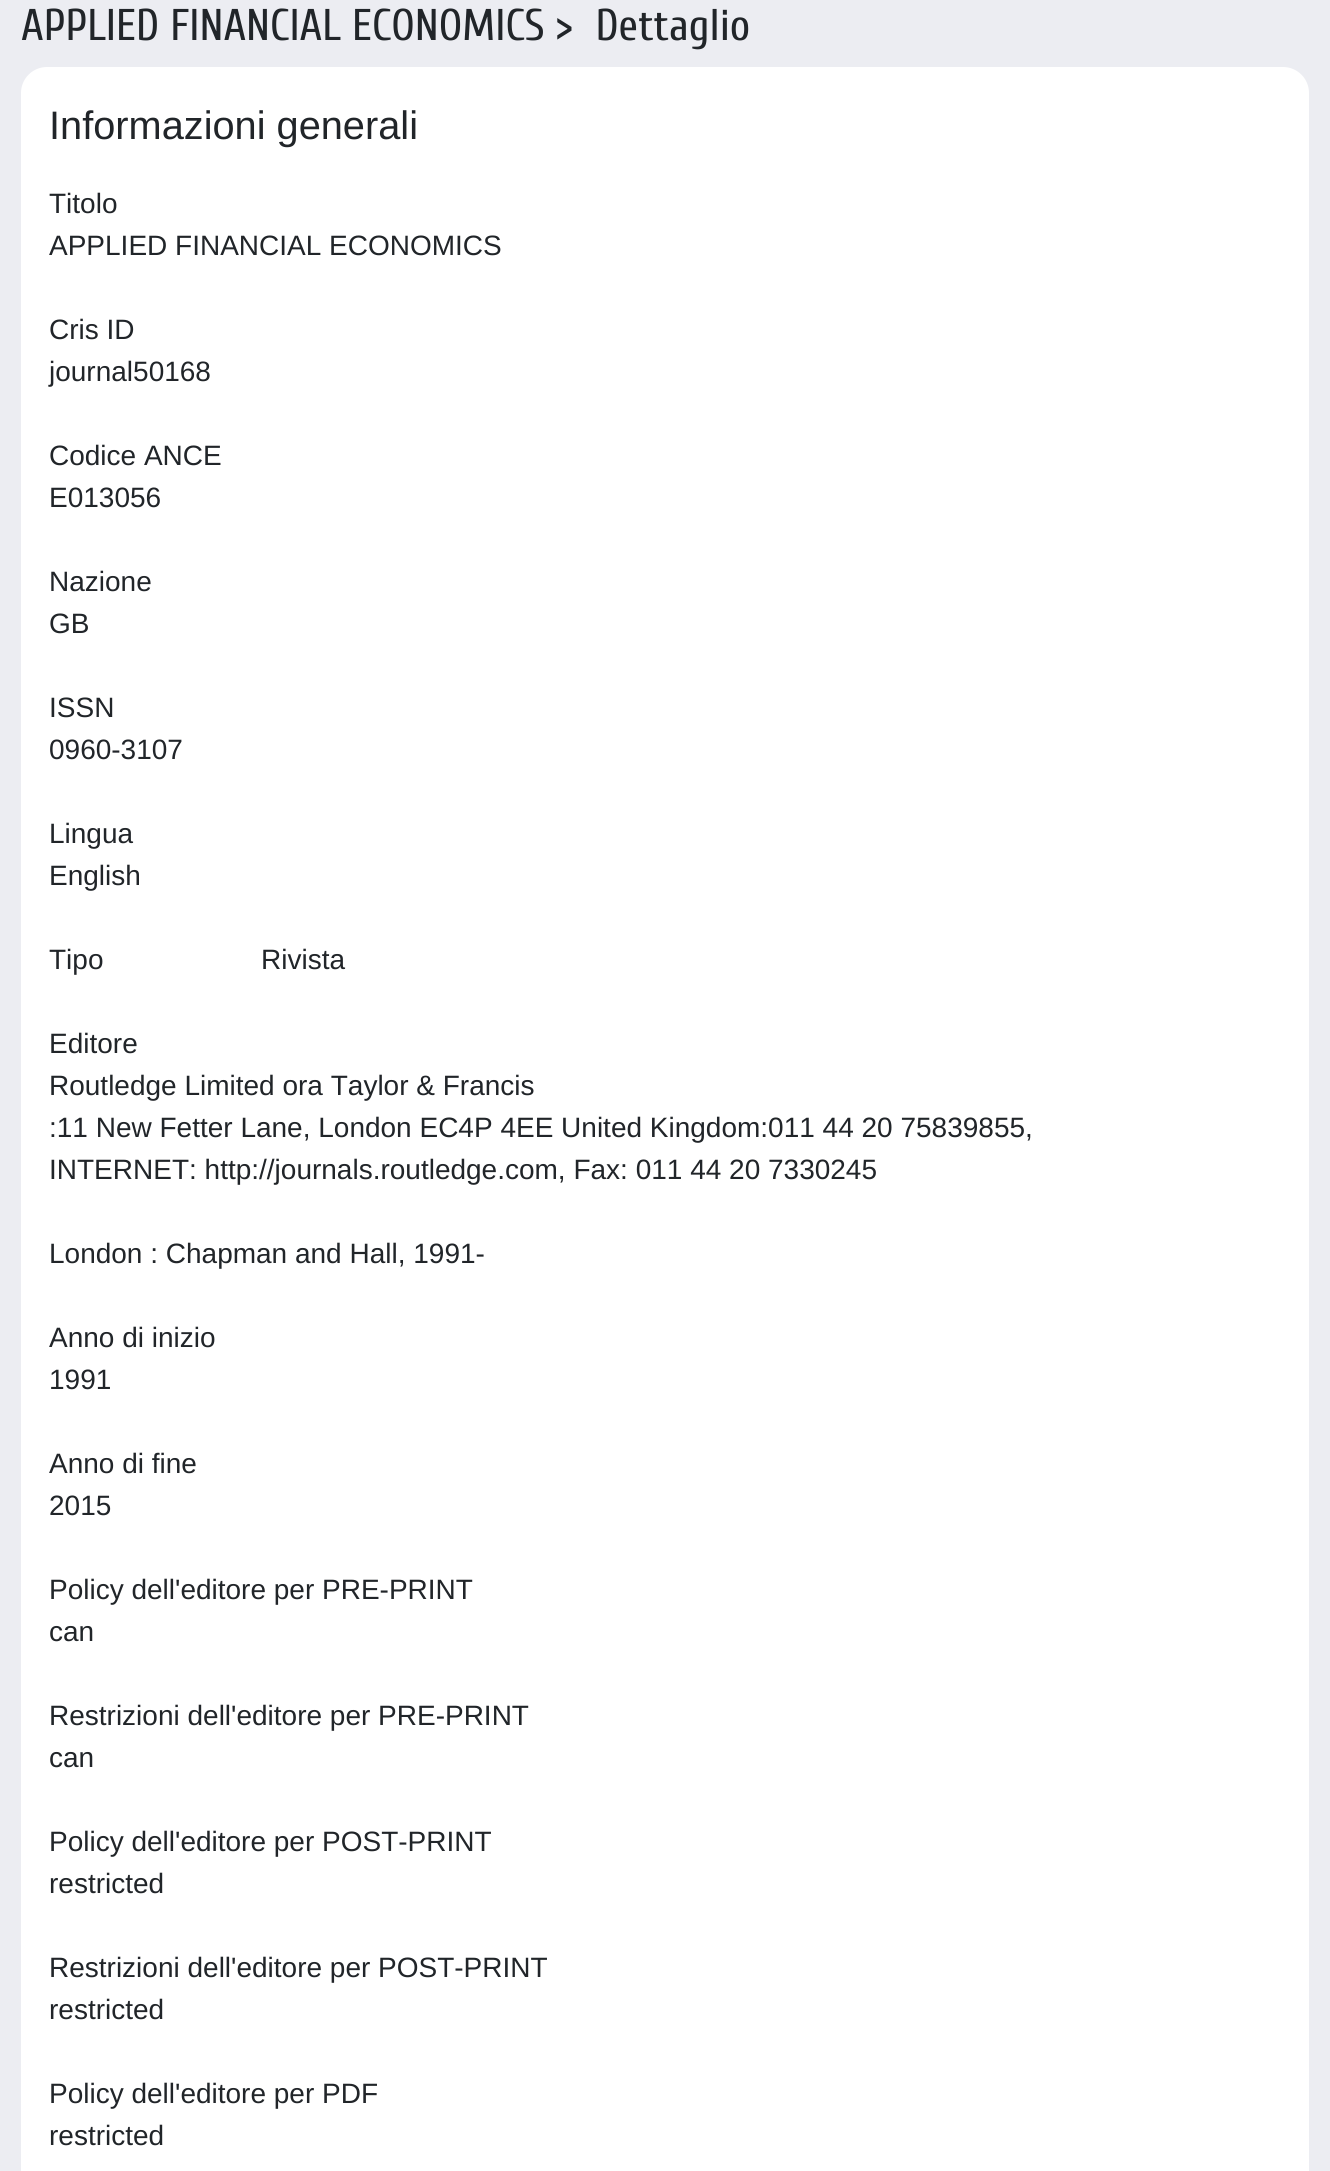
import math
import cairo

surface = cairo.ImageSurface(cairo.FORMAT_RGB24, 1330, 2171)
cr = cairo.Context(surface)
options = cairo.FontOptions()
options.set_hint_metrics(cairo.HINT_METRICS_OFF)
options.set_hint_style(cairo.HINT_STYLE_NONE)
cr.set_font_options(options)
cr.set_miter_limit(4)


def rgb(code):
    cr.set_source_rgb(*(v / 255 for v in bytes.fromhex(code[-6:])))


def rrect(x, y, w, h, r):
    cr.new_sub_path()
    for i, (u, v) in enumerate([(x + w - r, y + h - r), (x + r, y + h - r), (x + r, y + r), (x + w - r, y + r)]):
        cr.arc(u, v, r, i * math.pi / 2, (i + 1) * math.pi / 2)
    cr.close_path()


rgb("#ecedf2")
cr.paint()
rgb("#ffffff")
rrect(21, 67, 1288, 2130, 26)
cr.fill()
cr.select_font_face("Cuprum")
cr.set_font_size(44.4)
rgb("#212529")
cr.move_to(21, 40)
cr.show_text("APPLIED FINANCIAL ECONOMICS >  Dettaglio")
cr.select_font_face("Liberation Sans")
cr.set_font_size(39.75)
cr.move_to(49, 139)
cr.show_text("Informazioni generali")
cr.set_font_size(28)
for x, y, s in [
    (49, 213, "Titolo"),
    (49, 255, "APPLIED FINANCIAL ECONOMICS"),
    (49, 339, "Cris ID"),
    (49, 381, "journal50168"),
    (49, 465, "Codice ANCE"),
    (49, 507, "E013056"),
    (49, 591, "Nazione"),
    (49, 633, "GB"),
    (49, 717, "ISSN"),
    (49, 759, "0960-3107"),
    (49, 843, "Lingua"),
    (49, 885, "English"),
    (49, 969, "Tipo"),
    (261, 969, "Rivista"),
    (49, 1053, "Editore"),
    (49, 1095, "Routledge Limited ora Taylor & Francis"),
    (49, 1137, ":11 New Fetter Lane, London EC4P 4EE United Kingdom:011 44 20 75839855,"),
    (49, 1179, "INTERNET: http://journals.routledge.com, Fax: 011 44 20 7330245"),
    (49, 1263, "London : Chapman and Hall, 1991-"),
    (49, 1347, "Anno di inizio"),
    (49, 1389, "1991"),
    (49, 1473, "Anno di fine"),
    (49, 1515, "2015"),
    (49, 1599, "Policy dell'editore per PRE-PRINT"),
    (49, 1641, "can"),
    (49, 1725, "Restrizioni dell'editore per PRE-PRINT"),
    (49, 1767, "can"),
    (49, 1851, "Policy dell'editore per POST-PRINT"),
    (49, 1893, "restricted"),
    (49, 1977, "Restrizioni dell'editore per POST-PRINT"),
    (49, 2019, "restricted"),
    (49, 2103, "Policy dell'editore per PDF"),
    (49, 2145, "restricted"),
]:
    cr.move_to(x, y)
    cr.show_text(s)
surface.write_to_png("page.png")
